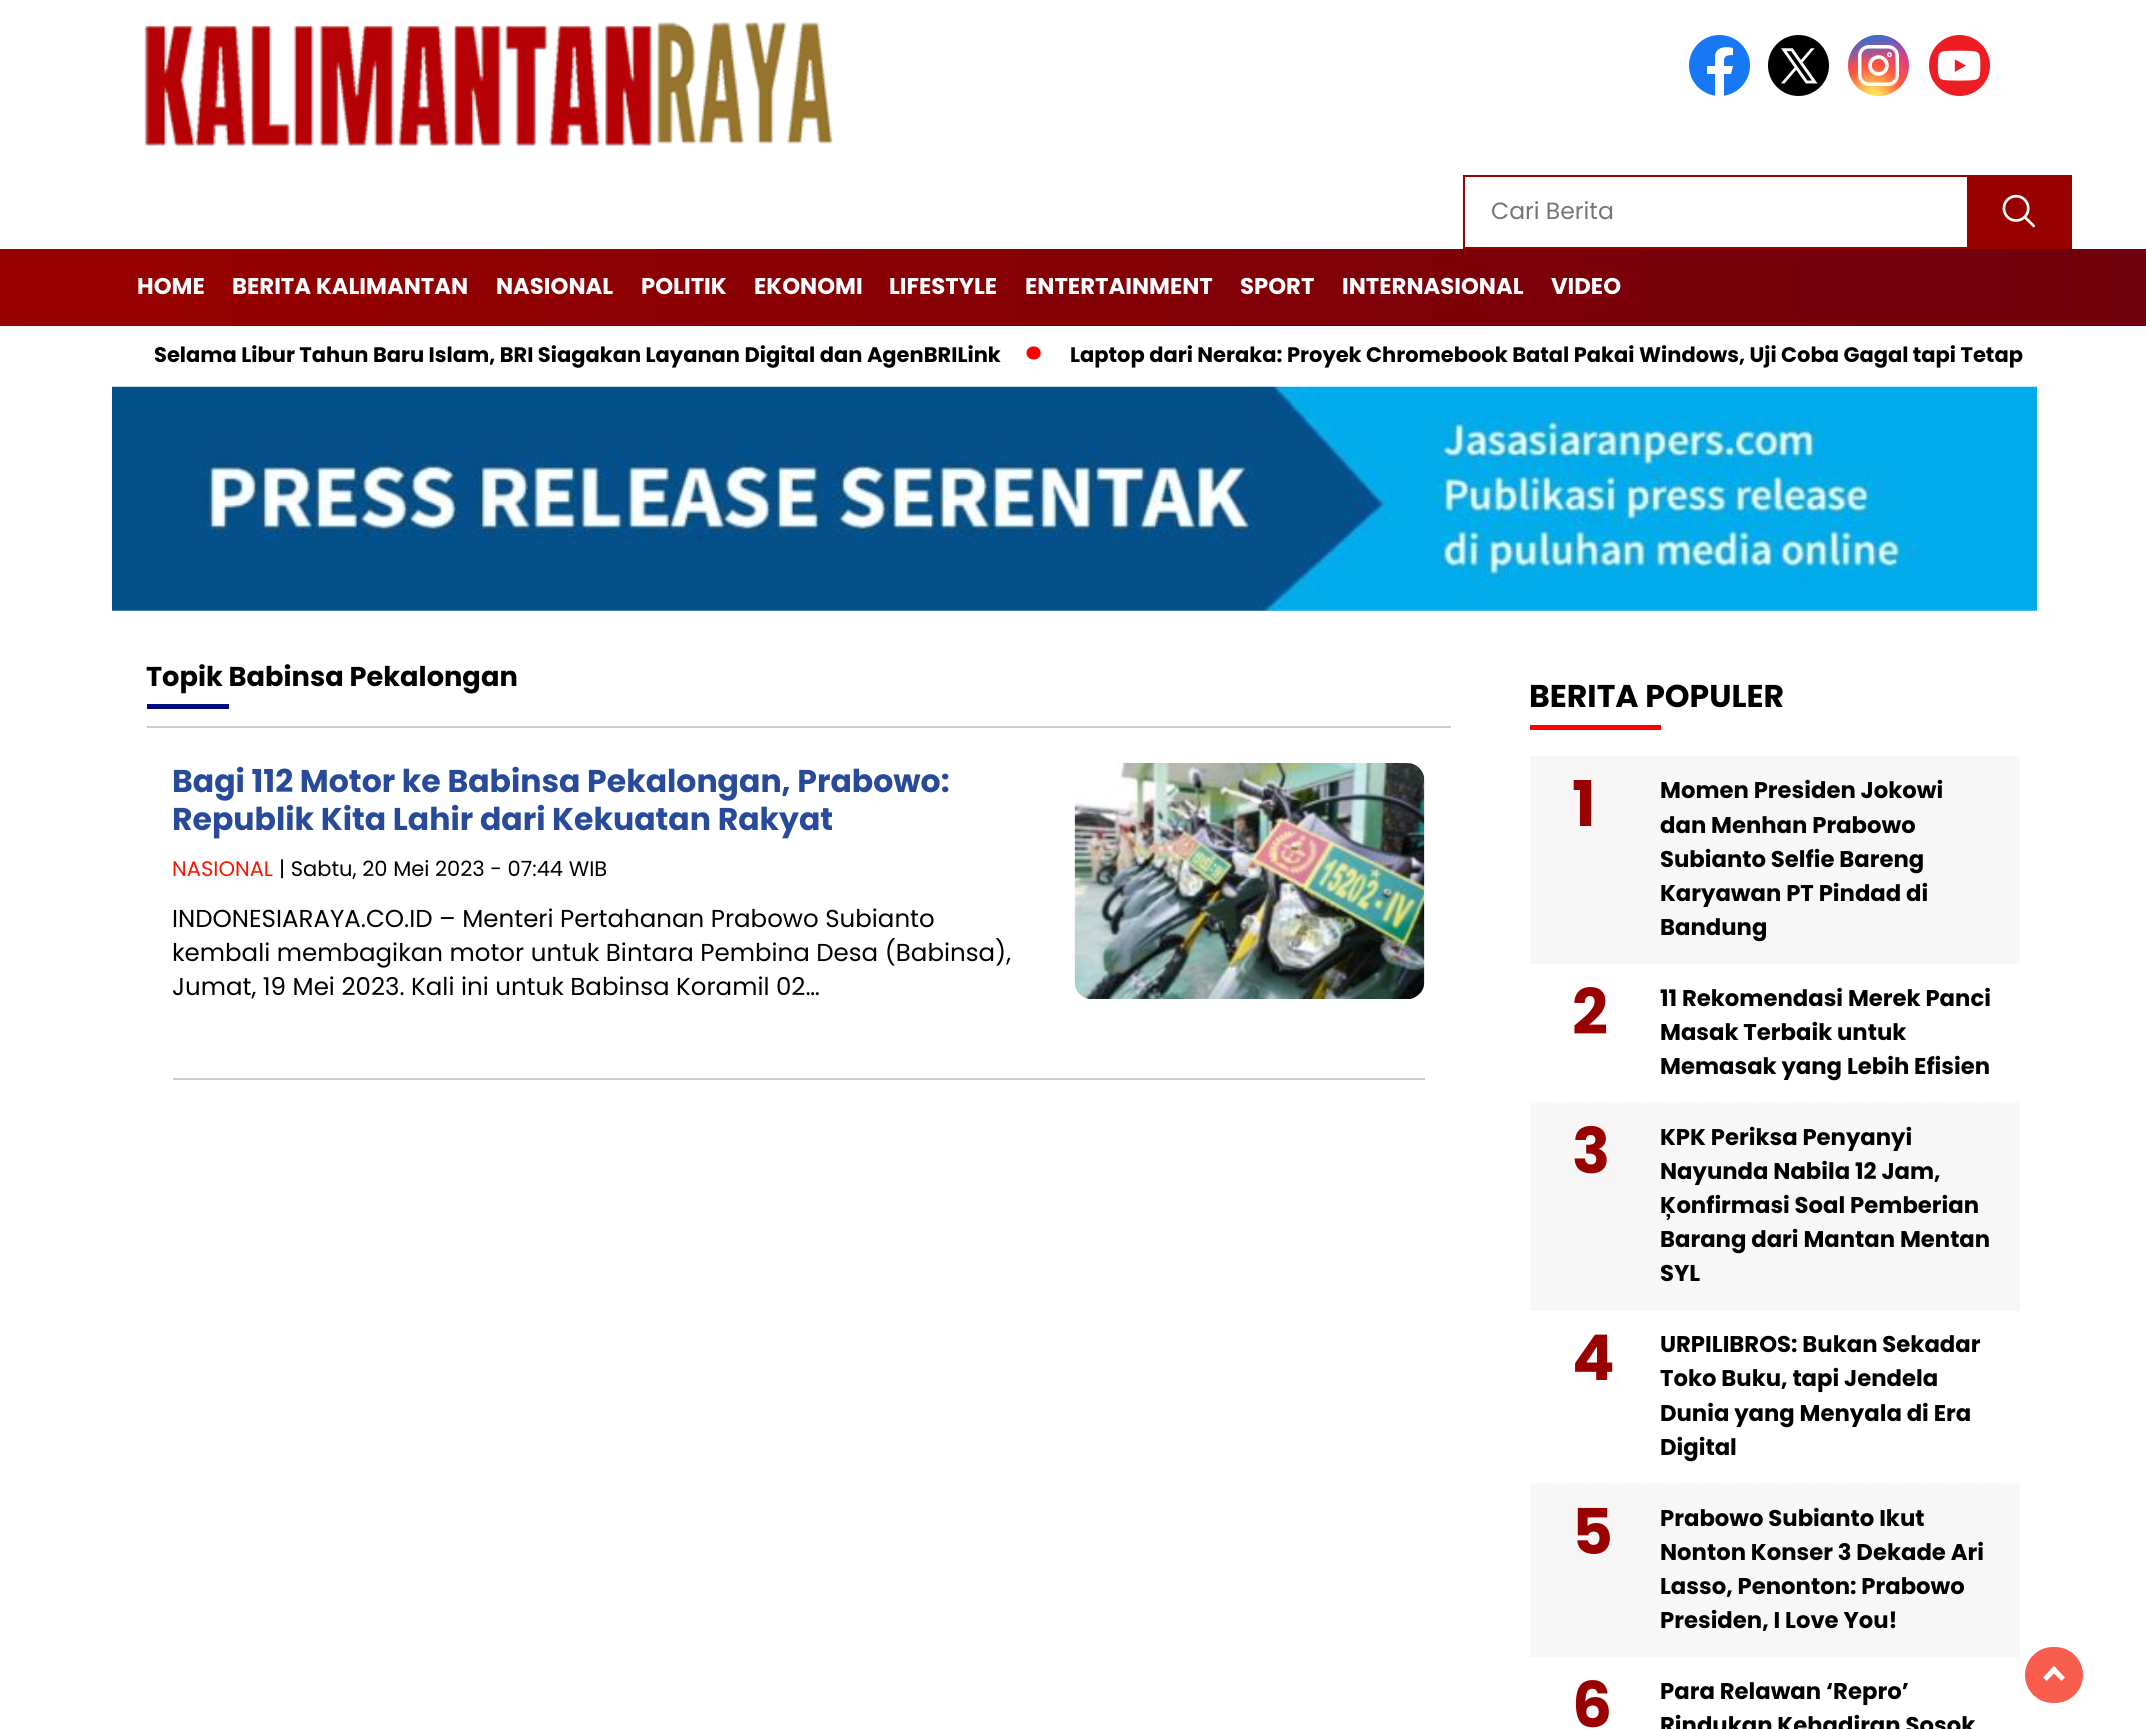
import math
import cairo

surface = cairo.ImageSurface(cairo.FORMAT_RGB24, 2146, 1729)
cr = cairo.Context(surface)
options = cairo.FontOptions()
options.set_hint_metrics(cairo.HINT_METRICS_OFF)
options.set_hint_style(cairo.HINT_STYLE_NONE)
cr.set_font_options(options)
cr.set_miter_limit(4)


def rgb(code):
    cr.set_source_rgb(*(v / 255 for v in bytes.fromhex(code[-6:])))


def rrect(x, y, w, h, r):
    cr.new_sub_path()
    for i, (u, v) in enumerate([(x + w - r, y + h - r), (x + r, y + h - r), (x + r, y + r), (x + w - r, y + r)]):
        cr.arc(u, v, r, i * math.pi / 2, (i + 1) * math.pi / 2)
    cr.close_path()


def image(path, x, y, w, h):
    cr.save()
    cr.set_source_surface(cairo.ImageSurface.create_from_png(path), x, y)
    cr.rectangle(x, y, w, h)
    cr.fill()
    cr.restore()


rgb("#ffffff")
cr.paint()
image("img/1.png", 144, 22, 690, 124)
rgb("#1877f2")
cr.arc(1719.5, 65.5, 30.5, 0, 2 * math.pi)
cr.fill()
rgb("#ffffff")
cr.new_path()
cr.move_to(1731, 74)
cr.line_to(1724, 74)
cr.line_to(1724, 96)
cr.line_to(1715, 96)
cr.line_to(1715, 74)
cr.line_to(1707, 74)
cr.line_to(1707, 66)
cr.line_to(1715, 66)
cr.line_to(1715, 56)
cr.curve_to(1716, 47, 1725, 46, 1733, 48)
cr.line_to(1733, 55)
cr.curve_to(1723, 55, 1724, 58, 1724, 66)
cr.line_to(1733, 66)
cr.close_path()
cr.fill()
image("img/2.png", 1768, 35, 61, 61)
gradient = cairo.RadialGradient(1873, 96, 0, 1873, 96, 61)
gradient.add_color_stop_rgba(0.1, 1, 0.867, 0.333, 1)
gradient.add_color_stop_rgba(0.5, 1, 0.329, 0.243, 1)
gradient.add_color_stop_rgba(1, 0.784, 0.216, 0.671, 1)
cr.set_source(gradient)
cr.arc(1878.5, 65.5, 30.5, 0, 2 * math.pi)
cr.fill()
gradient = cairo.LinearGradient(1848, 35, 1860, 96)
gradient.add_color_stop_rgba(0.1, 0.216, 0.443, 0.784, 1)
gradient.add_color_stop_rgba(0.5, 0.216, 0.443, 0.784, 0)
cr.set_source(gradient)
cr.arc(1878.5, 65.5, 30.5, 0, 2 * math.pi)
cr.fill()
rrect(1859.75, 46.75, 37.5, 37.5, 9.25)
rgb("#ffffff")
cr.set_line_width(3.5)
cr.stroke()
cr.arc(1878.5, 65.5, 8.5, 0, 2 * math.pi)
cr.set_line_width(3.6)
cr.stroke()
cr.arc(1889.5, 54.7, 0.7, 0, 2 * math.pi)
cr.stroke()
image("img/3.png", 1929, 35, 61, 61)
cr.rectangle(1464, 176, 504, 72)
rgb("#990000")
cr.set_line_width(2)
cr.stroke()
cr.rectangle(1969, 175, 103, 74)
cr.fill()
image("img/4.png", 2002, 194, 33, 34)
gradient = cairo.LinearGradient(0, 287, 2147, 287)
gradient.add_color_stop_rgba(0, 0.6, 0, 0, 1)
gradient.add_color_stop_rgba(1, 0.439, 0, 0.051, 1)
cr.set_source(gradient)
cr.rectangle(0, 249, 2146, 77)
cr.fill()
image("img/5.png", 112, 386, 1925, 225)
for x, y, w, h, color in [
    (147, 726, 1304, 2, "#cccccc"),
    (147, 704, 82, 5, "#010a80"),
    (173, 1078, 1252, 2, "#cccccc"),
]:
    rgb(color)
    cr.rectangle(x, y, w, h)
    cr.fill()
image("img/6.png", 1074, 763, 351, 236)
rgb("#ff0000")
cr.rectangle(1530, 725, 131, 5)
cr.fill()
rgb("#f7f7f7")
cr.rectangle(1530, 756, 490, 208)
cr.fill()
cr.new_path()
cr.move_to(1529.5, 963.5)
cr.line_to(2019.5, 963.5)
cr.set_line_width(1.8)
cr.set_dash([1.75, 1.75])
cr.stroke()
cr.new_path()
cr.move_to(1529.5, 1101.5)
cr.line_to(2019.5, 1101.5)
cr.stroke()
cr.rectangle(1530, 1103, 490, 208)
cr.fill()
cr.new_path()
cr.move_to(1529.5, 1310)
cr.line_to(2019.5, 1310)
cr.stroke()
cr.new_path()
cr.move_to(1529.5, 1483)
cr.line_to(2019.5, 1483)
cr.stroke()
cr.rectangle(1530, 1484, 490, 173)
cr.fill()
cr.new_path()
cr.move_to(1529.5, 1656.5)
cr.line_to(2019.5, 1656.5)
cr.stroke()
rgb("#f85d4d")
rrect(2025, 1647, 58, 56, 28)
cr.fill()
rgb("#ffffff")
cr.new_path()
cr.move_to(2046.5, 1681)
cr.line_to(2043, 1677.5)
cr.line_to(2054, 1666)
cr.line_to(2057.5, 1670)
cr.close_path()
cr.fill()
cr.new_path()
cr.move_to(2061.5, 1681)
cr.line_to(2050.5, 1670)
cr.line_to(2054, 1666)
cr.line_to(2065, 1677.5)
cr.close_path()
cr.fill()
cr.select_font_face("Poppins")
cr.set_font_size(23.5)
rgb("#757575")
cr.move_to(1491, 219)
cr.show_text("Cari Berita")
cr.select_font_face("Poppins", cairo.FONT_SLANT_NORMAL, cairo.FONT_WEIGHT_BOLD)
cr.set_font_size(22.75)
rgb("#ffffff")
for x, y, s in [
    (137, 294, "HOME"),
    (232, 294, "BERITA KALIMANTAN"),
    (496, 294, "NASIONAL"),
    (641, 294, "POLITIK"),
    (754, 294, "EKONOMI"),
    (889, 294, "LIFESTYLE"),
    (1025, 294, "ENTERTAINMENT"),
    (1240, 294, "SPORT"),
    (1342, 294, "INTERNASIONAL"),
    (1551, 294, "VIDEO"),
]:
    cr.move_to(x, y)
    cr.show_text(s)
cr.set_font_size(21)
rgb("#000000")
cr.move_to(154, 362)
cr.show_text("Selama Libur Tahun Baru Islam, BRI Siagakan Layanan Digital dan AgenBRILink")
cr.set_font_size(70)
rgb("#ff0000")
cr.move_to(1023, 375)
cr.show_text("·")
cr.set_font_size(21)
rgb("#000000")
cr.move_to(1070, 362)
cr.show_text("Laptop dari Neraka: Proyek Chromebook Batal Pakai Windows, Uji Coba Gagal tapi Tetap")
cr.set_font_size(27.25)
cr.move_to(146, 686)
cr.show_text("Topik Babinsa Pekalongan")
cr.set_font_size(31.5)
rgb("#284a9a")
cr.move_to(172, 792)
cr.show_text("Bagi 112 Motor ke Babinsa Pekalongan, Prabowo:")
cr.move_to(172, 830)
cr.show_text("Republik Kita Lahir dari Kekuatan Rakyat")
cr.select_font_face("Poppins")
cr.set_font_size(21)
rgb("#f51700")
cr.move_to(172, 876)
cr.show_text("NASIONAL")
rgb("#000000")
cr.move_to(279, 876)
cr.show_text("| Sabtu, 20 Mei 2023 - 07:44 WIB")
cr.set_font_size(24.5)
for x, y, s in [
    (172, 927, "INDONESIARAYA.CO.ID – Menteri Pertahanan Prabowo Subianto"),
    (172, 961, "kembali membagikan motor untuk Bintara Pembina Desa (Babinsa),"),
    (172, 995, "Jumat, 19 Mei 2023. Kali ini untuk Babinsa Koramil 02…"),
]:
    cr.move_to(x, y)
    cr.show_text(s)
cr.select_font_face("Poppins", cairo.FONT_SLANT_NORMAL, cairo.FONT_WEIGHT_BOLD)
cr.set_font_size(31.5)
cr.move_to(1529, 707)
cr.show_text("BERITA POPULER")
cr.set_font_size(63)
rgb("#990000")
cr.move_to(1572, 826)
cr.show_text("1")
cr.set_font_size(22.75)
rgb("#000000")
for x, y, s in [
    (1660, 798, "Momen Presiden Jokowi"),
    (1660, 833, "dan Menhan Prabowo"),
    (1660, 867, "Subianto Selfie Bareng"),
    (1660, 901, "Karyawan PT Pindad di"),
    (1660, 935, "Bandung"),
]:
    cr.move_to(x, y)
    cr.show_text(s)
cr.set_font_size(63)
rgb("#990000")
cr.move_to(1572, 1034)
cr.show_text("2")
cr.set_font_size(22.75)
rgb("#000000")
for x, y, s in [
    (1660, 1006, "11 Rekomendasi Merek Panci"),
    (1660, 1040, "Masak Terbaik untuk"),
    (1660, 1074, "Memasak yang Lebih Efisien"),
]:
    cr.move_to(x, y)
    cr.show_text(s)
cr.set_font_size(63)
rgb("#990000")
cr.move_to(1572, 1173)
cr.show_text("3")
cr.set_font_size(22.75)
rgb("#000000")
for x, y, s in [
    (1660, 1145, "KPK Periksa Penyanyi"),
    (1660, 1179, "Nayunda Nabila 12 Jam,"),
    (1660, 1213, "Ķonfirmasi Soal Pemberian"),
    (1660, 1247, "Barang dari Mantan Mentan"),
    (1660, 1281, "SYL"),
]:
    cr.move_to(x, y)
    cr.show_text(s)
cr.set_font_size(63)
rgb("#990000")
cr.move_to(1572, 1380)
cr.show_text("4")
cr.set_font_size(22.75)
rgb("#000000")
for x, y, s in [
    (1660, 1352, "URPILIBROS: Bukan Sekadar"),
    (1660, 1386, "Toko Buku, tapi Jendela"),
    (1660, 1421, "Dunia yang Menyala di Era"),
    (1660, 1455, "Digital"),
]:
    cr.move_to(x, y)
    cr.show_text(s)
cr.set_font_size(63)
rgb("#990000")
cr.move_to(1572, 1554)
cr.show_text("5")
cr.set_font_size(22.75)
rgb("#000000")
for x, y, s in [
    (1660, 1526, "Prabowo Subianto Ikut"),
    (1660, 1560, "Nonton Konser 3 Dekade Ari"),
    (1660, 1594, "Lasso, Penonton: Prabowo"),
    (1660, 1628, "Presiden, I Love You!"),
]:
    cr.move_to(x, y)
    cr.show_text(s)
cr.set_font_size(63)
rgb("#990000")
cr.move_to(1572, 1727)
cr.show_text("6")
cr.set_font_size(22.75)
rgb("#000000")
cr.move_to(1660, 1699)
cr.show_text("Para Relawan ‘Repro’")
cr.move_to(1660, 1733)
cr.show_text("Rindukan Kehadiran Sosok")
surface.write_to_png("page.png")
